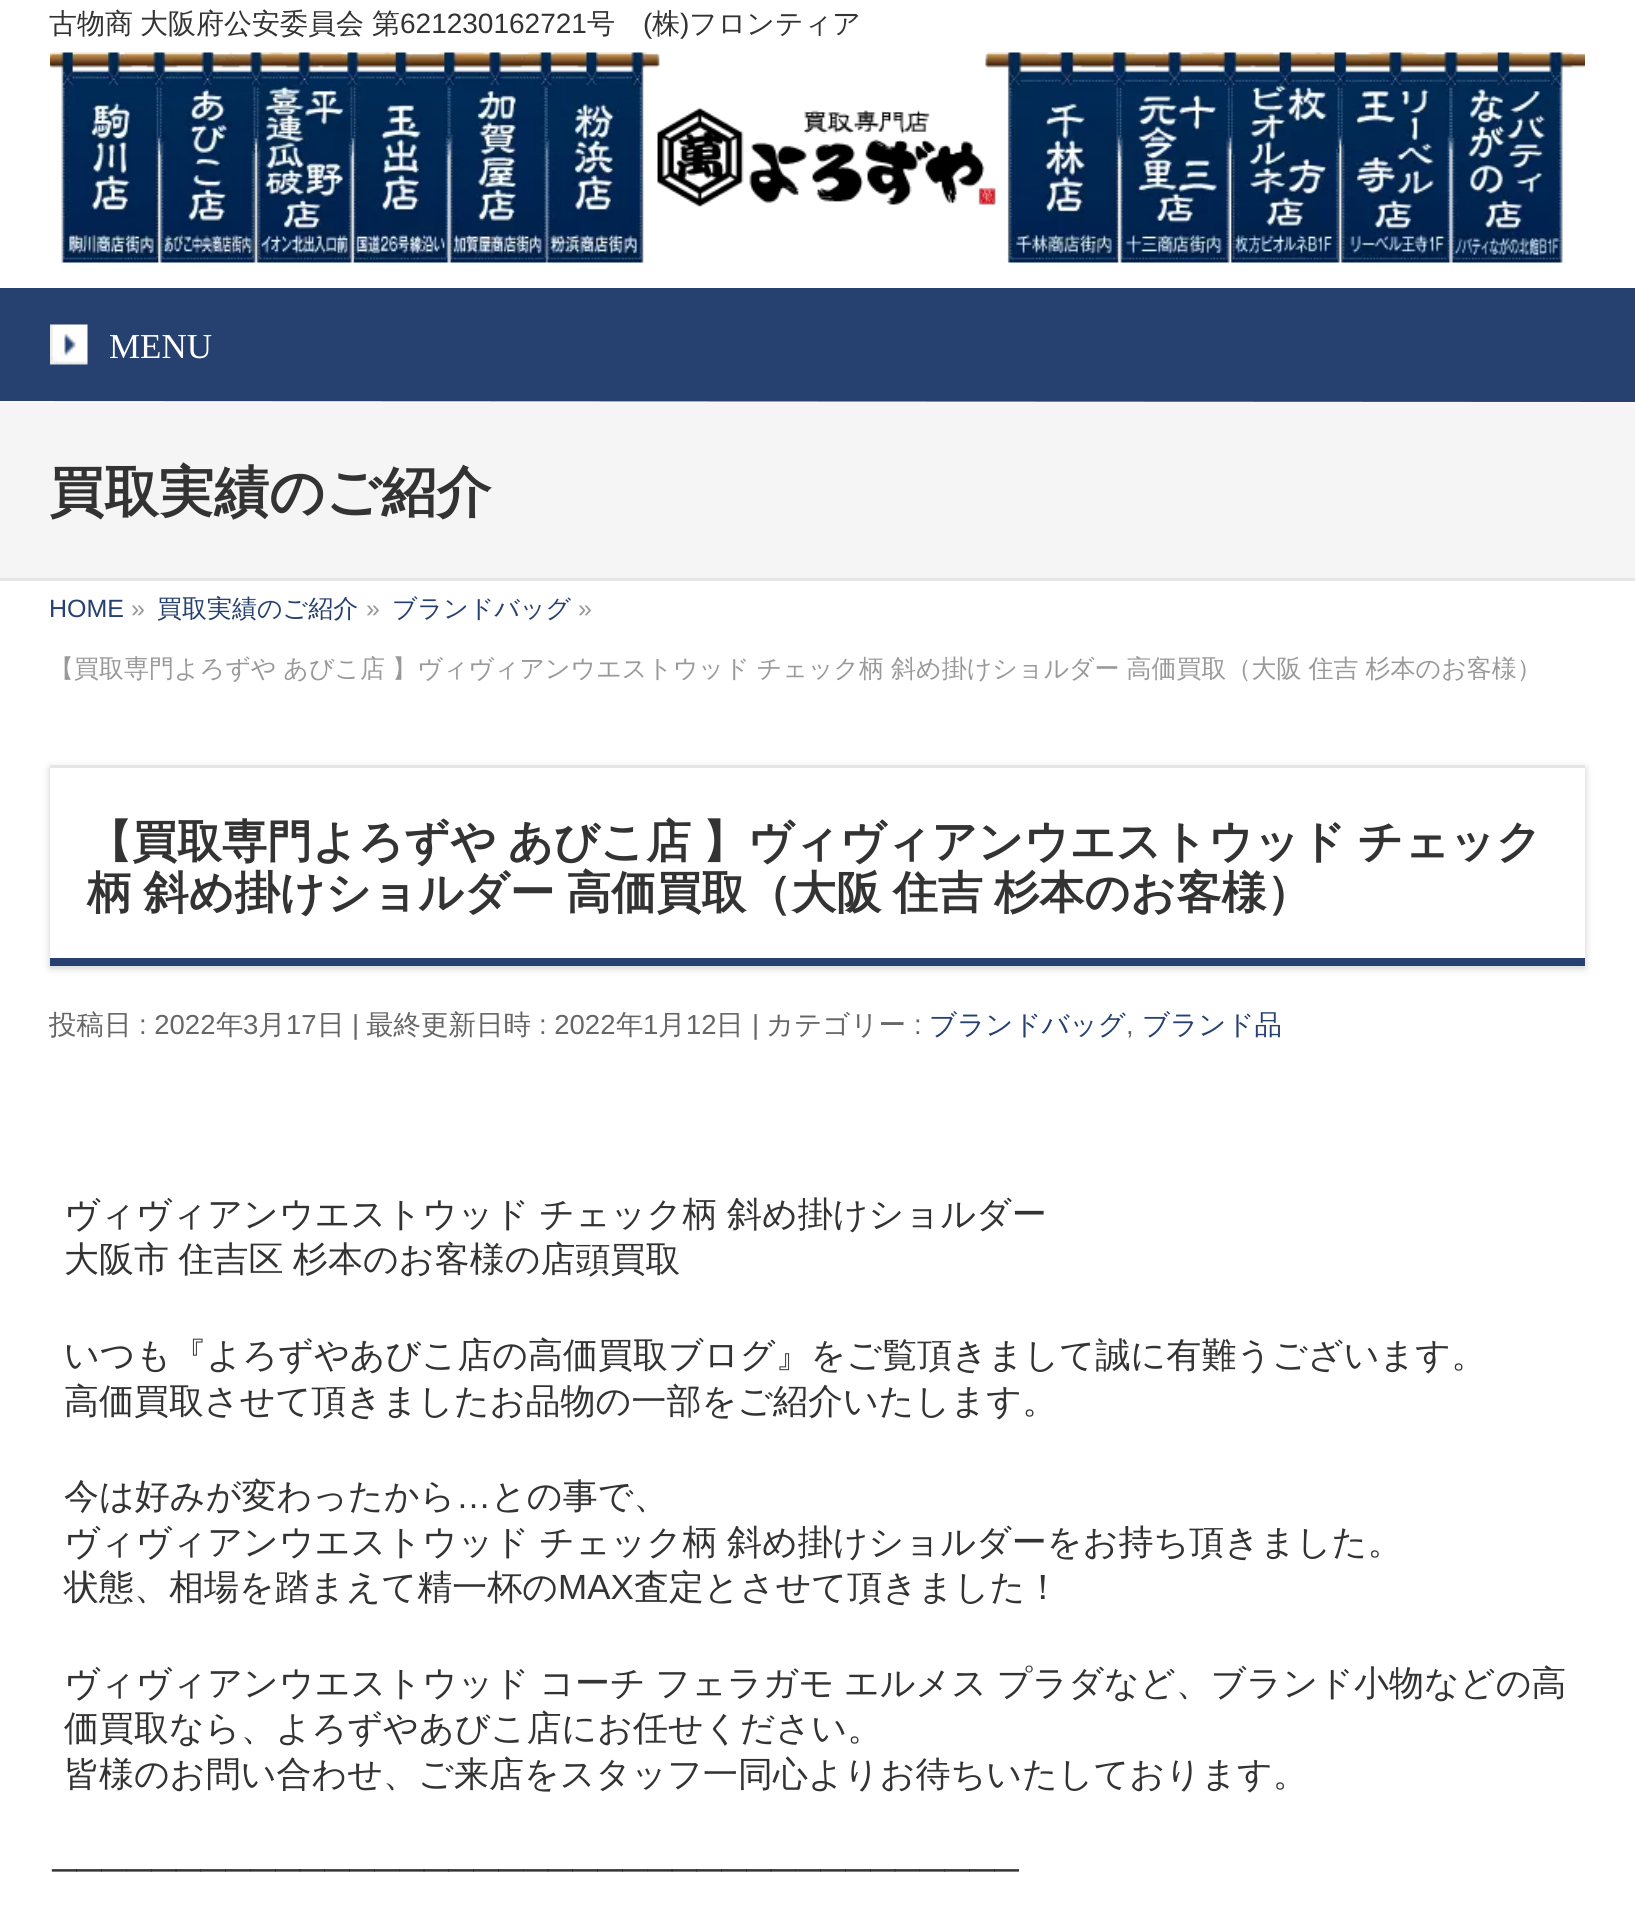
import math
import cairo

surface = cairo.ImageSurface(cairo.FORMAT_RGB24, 1635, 1922)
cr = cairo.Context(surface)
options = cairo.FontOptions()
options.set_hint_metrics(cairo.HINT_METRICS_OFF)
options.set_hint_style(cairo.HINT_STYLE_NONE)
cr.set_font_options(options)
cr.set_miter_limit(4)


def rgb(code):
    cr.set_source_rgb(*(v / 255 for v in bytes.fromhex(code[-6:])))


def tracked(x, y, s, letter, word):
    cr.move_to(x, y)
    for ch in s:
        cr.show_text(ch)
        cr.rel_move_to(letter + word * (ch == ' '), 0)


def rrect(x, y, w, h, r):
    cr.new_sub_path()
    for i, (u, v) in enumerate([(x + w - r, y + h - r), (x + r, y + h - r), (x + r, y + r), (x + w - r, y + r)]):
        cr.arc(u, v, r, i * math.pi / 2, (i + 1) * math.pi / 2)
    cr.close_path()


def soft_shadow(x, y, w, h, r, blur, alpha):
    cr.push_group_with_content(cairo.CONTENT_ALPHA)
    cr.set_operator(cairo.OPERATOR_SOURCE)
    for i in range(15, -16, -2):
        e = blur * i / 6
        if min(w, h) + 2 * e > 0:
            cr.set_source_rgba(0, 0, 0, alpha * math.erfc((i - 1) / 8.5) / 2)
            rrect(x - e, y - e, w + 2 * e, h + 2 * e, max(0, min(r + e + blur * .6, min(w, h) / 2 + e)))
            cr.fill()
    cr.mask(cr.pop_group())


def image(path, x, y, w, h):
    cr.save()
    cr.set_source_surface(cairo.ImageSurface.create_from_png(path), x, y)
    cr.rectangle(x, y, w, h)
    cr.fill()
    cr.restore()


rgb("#ffffff")
cr.paint()
image("img/1.png", 50, 52, 1535, 211)
rgb("#f9f9f9")
cr.rectangle(0, 401, 1635, 2)
cr.fill()
rgb("#264070")
cr.rectangle(0, 288, 1635, 3)
cr.fill()
cr.new_path()
cr.move_to(0, 290)
cr.line_to(1635, 291)
cr.line_to(1635, 402)
cr.line_to(0, 401)
cr.close_path()
cr.fill()
image("img/2.png", 50, 324, 38, 41)
rgb("#f5f5f5")
cr.rectangle(0, 403, 1635, 175)
cr.fill()
rgb("#e5e5e5")
cr.rectangle(0, 578, 1635, 3)
cr.fill()
cr.save()
cr.set_fill_rule(cairo.FILL_RULE_EVEN_ODD)
cr.new_path()
cr.move_to(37, 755)
cr.line_to(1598, 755)
cr.line_to(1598, 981)
cr.line_to(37, 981)
cr.close_path()
cr.move_to(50, 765)
cr.line_to(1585, 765)
cr.line_to(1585, 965)
cr.line_to(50, 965)
cr.close_path()
cr.clip()
rgb("#000000")
soft_shadow(50, 768, 1535, 200, 0, 4, 0.2)
cr.restore()
cr.rectangle(50, 765, 1535, 3)
cr.fill()
rgb("#264070")
cr.rectangle(50, 958, 1535, 8)
cr.fill()
cr.select_font_face("WenQuanYi Zen Hei Medium")
cr.set_font_size(28)
rgb("#333333")
for x, y, s in [
    (49, 33, "古物商"),
    (140, 33, "大阪府公安委員会"),
    (372, 33, "第"),
]:
    cr.move_to(x, y)
    cr.show_text(s)
cr.select_font_face("Liberation Sans")
cr.move_to(400, 33)
cr.show_text("621230162721")
cr.select_font_face("WenQuanYi Zen Hei Medium")
cr.move_to(587, 33)
cr.show_text("号")
cr.select_font_face("Liberation Sans")
cr.move_to(643, 33)
cr.show_text("(")
cr.select_font_face("WenQuanYi Zen Hei Medium")
cr.move_to(652, 33)
cr.show_text("株")
cr.select_font_face("Liberation Sans")
cr.move_to(680, 33)
cr.show_text(")")
cr.select_font_face("WenQuanYi Zen Hei Medium")
cr.move_to(689, 33)
cr.show_text("フロンティア")
cr.select_font_face("Liberation Serif")
cr.set_font_size(35)
rgb("#ffffff")
cr.move_to(109, 358)
cr.show_text("MENU")
cr.select_font_face("WenQuanYi Zen Hei", cairo.FONT_SLANT_NORMAL, cairo.FONT_WEIGHT_BOLD)
cr.set_font_size(55)
rgb("#333333")
cr.move_to(49, 511)
cr.show_text("買取実績のご紹介")
cr.select_font_face("Liberation Sans")
cr.set_font_size(25)
rgb("#264070")
cr.move_to(49, 617)
cr.show_text("HOME")
rgb("#999999")
cr.move_to(131, 617)
cr.show_text("»")
cr.select_font_face("WenQuanYi Zen Hei Medium")
rgb("#264070")
cr.move_to(157, 617)
cr.show_text("買取実績のご紹介")
cr.select_font_face("Liberation Sans")
rgb("#999999")
cr.move_to(366, 617)
cr.show_text("»")
cr.select_font_face("WenQuanYi Zen Hei Medium")
rgb("#264070")
cr.move_to(392, 617)
cr.show_text("ブランドバッグ")
cr.select_font_face("Liberation Sans")
rgb("#999999")
cr.move_to(578, 617)
cr.show_text("»")
cr.select_font_face("WenQuanYi Zen Hei Medium")
tracked(49, 677, "【買取専門よろずや あびこ店 】ヴィヴィアンウエストウッド チェック柄 斜め掛けショルダー 高価買取（大阪 住吉 杉本のお客様）", 0, -0.5)
cr.select_font_face("WenQuanYi Zen Hei", cairo.FONT_SLANT_NORMAL, cairo.FONT_WEIGHT_BOLD)
cr.set_font_size(45)
rgb("#333333")
tracked(87, 857, "【買取専門よろずや あびこ店 】ヴィヴィアンウエストウッド チェック", 0, -2)
tracked(87, 908, "柄 斜め掛けショルダー 高価買取（大阪 住吉 杉本のお客様）", 0, -2)
cr.select_font_face("WenQuanYi Zen Hei Medium")
cr.set_font_size(27.5)
rgb("#666666")
cr.move_to(49, 1034)
cr.show_text("投稿日")
cr.select_font_face("Liberation Sans")
cr.move_to(139, 1034)
cr.show_text(": 2022")
cr.select_font_face("WenQuanYi Zen Hei Medium")
cr.move_to(216, 1034)
cr.show_text("年")
cr.select_font_face("Liberation Sans")
cr.move_to(243, 1034)
cr.show_text("3")
cr.select_font_face("WenQuanYi Zen Hei Medium")
cr.move_to(258, 1034)
cr.show_text("月")
cr.select_font_face("Liberation Sans")
cr.move_to(286, 1034)
cr.show_text("17")
cr.select_font_face("WenQuanYi Zen Hei Medium")
cr.move_to(317, 1034)
cr.show_text("日")
cr.select_font_face("Liberation Sans")
cr.move_to(352, 1034)
cr.show_text("|")
cr.select_font_face("WenQuanYi Zen Hei Medium")
cr.move_to(366, 1034)
cr.show_text("最終更新日時")
cr.select_font_face("Liberation Sans")
cr.move_to(539, 1034)
cr.show_text(": 2022")
cr.select_font_face("WenQuanYi Zen Hei Medium")
cr.move_to(616, 1034)
cr.show_text("年")
cr.select_font_face("Liberation Sans")
cr.move_to(643, 1034)
cr.show_text("1")
cr.select_font_face("WenQuanYi Zen Hei Medium")
cr.move_to(658, 1034)
cr.show_text("月")
cr.select_font_face("Liberation Sans")
cr.move_to(686, 1034)
cr.show_text("12")
cr.select_font_face("WenQuanYi Zen Hei Medium")
cr.move_to(716, 1034)
cr.show_text("日")
cr.select_font_face("Liberation Sans")
cr.move_to(752, 1034)
cr.show_text("|")
cr.select_font_face("WenQuanYi Zen Hei Medium")
cr.move_to(766, 1034)
cr.show_text("カテゴリー")
cr.select_font_face("Liberation Sans")
cr.move_to(914, 1034)
cr.show_text(":")
cr.select_font_face("WenQuanYi Zen Hei Medium")
rgb("#264070")
cr.move_to(929, 1034)
cr.show_text("ブランドバッグ")
cr.select_font_face("Liberation Sans")
rgb("#666666")
cr.move_to(1126, 1034)
cr.show_text(",")
cr.select_font_face("WenQuanYi Zen Hei Medium")
rgb("#264070")
cr.move_to(1142, 1034)
cr.show_text("ブランド品")
cr.set_font_size(35)
rgb("#333333")
tracked(64, 1226, "ヴィヴィアンウエストウッド チェック柄 斜め掛けショルダー", 0, -1)
tracked(64, 1271, "大阪市 住吉区 杉本のお客様の店頭買取", 0, -1)
for x, y, s in [
    (64, 1367, "いつも『よろずやあびこ店の高価買取ブログ』をご覧頂きまして誠に有難うございます。"),
    (64, 1413, "高価買取させて頂きましたお品物の一部をご紹介いたします。"),
    (64, 1508, "今は好みが変わったから"),
]:
    cr.move_to(x, y)
    cr.show_text(s)
cr.select_font_face("Liberation Sans")
cr.move_to(456, 1508)
cr.show_text("…")
cr.select_font_face("WenQuanYi Zen Hei Medium")
cr.move_to(491, 1508)
cr.show_text("との事で、")
tracked(64, 1554, "ヴィヴィアンウエストウッド チェック柄 斜め掛けショルダーをお持ち頂きました。", 0, -1)
cr.move_to(64, 1599)
cr.show_text("状態、相場を踏まえて精一杯の")
cr.select_font_face("Liberation Sans")
cr.move_to(558, 1599)
cr.show_text("MAX")
cr.select_font_face("WenQuanYi Zen Hei Medium")
cr.move_to(634, 1599)
cr.show_text("査定とさせて頂きました！")
tracked(64, 1695, "ヴィヴィアンウエストウッド コーチ フェラガモ エルメス プラダなど、ブランド小物などの高", 0, -1)
cr.move_to(64, 1740)
cr.show_text("価買取なら、よろずやあびこ店にお任せください。")
cr.move_to(64, 1786)
cr.show_text("皆様のお問い合わせ、ご来店をスタッフ一同心よりお待ちいたしております。")
cr.select_font_face("Liberation Sans")
cr.move_to(52, 1881)
cr.show_text("───────────────────────────────────────")
surface.write_to_png("page.png")
